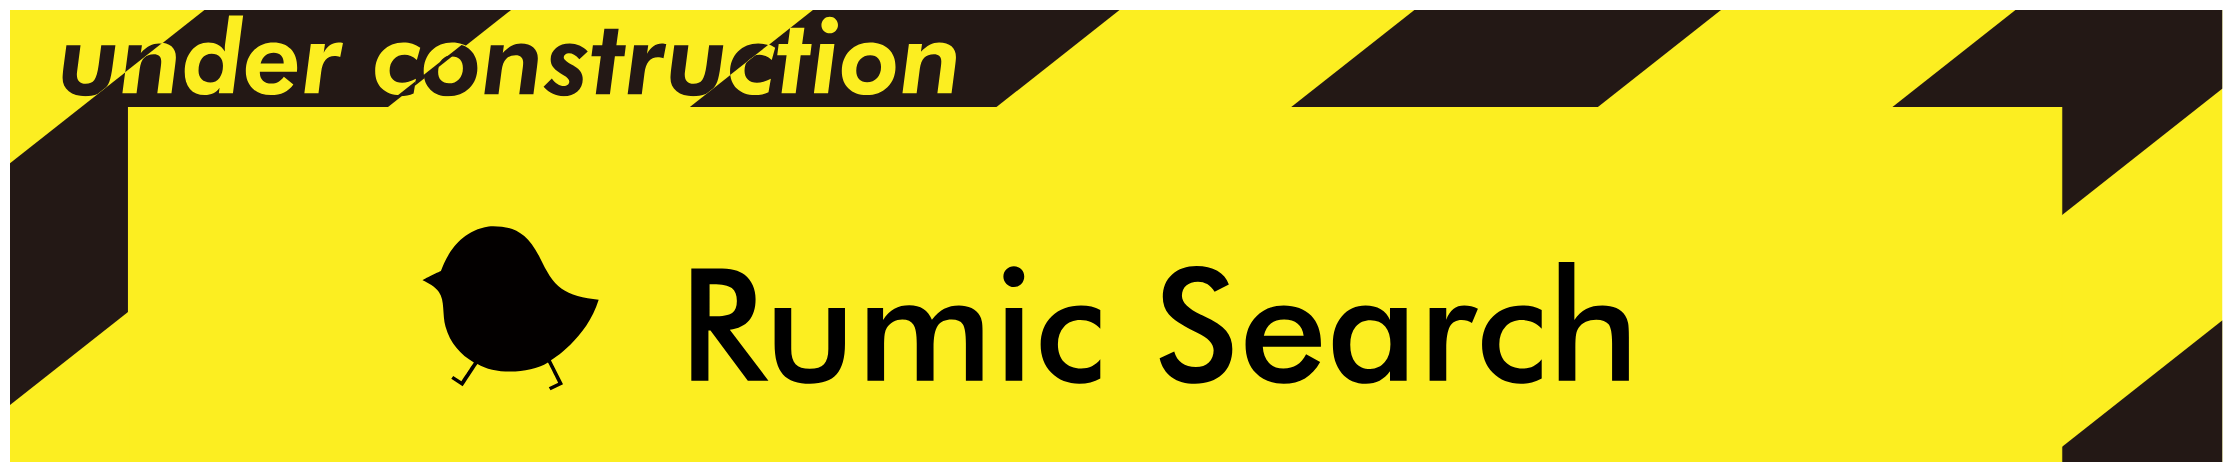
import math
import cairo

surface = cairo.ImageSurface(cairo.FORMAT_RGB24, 2232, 462)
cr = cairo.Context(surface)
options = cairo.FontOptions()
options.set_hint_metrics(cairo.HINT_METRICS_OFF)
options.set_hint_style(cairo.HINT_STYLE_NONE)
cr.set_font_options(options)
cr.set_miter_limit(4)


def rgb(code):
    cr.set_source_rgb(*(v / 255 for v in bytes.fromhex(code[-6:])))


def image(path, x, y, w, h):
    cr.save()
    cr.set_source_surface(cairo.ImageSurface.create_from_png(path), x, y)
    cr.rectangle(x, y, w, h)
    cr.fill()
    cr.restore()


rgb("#ffffff")
cr.paint()
image("img/1.png", 10, 10, 2213, 452)
surface.write_to_png("page.png")
